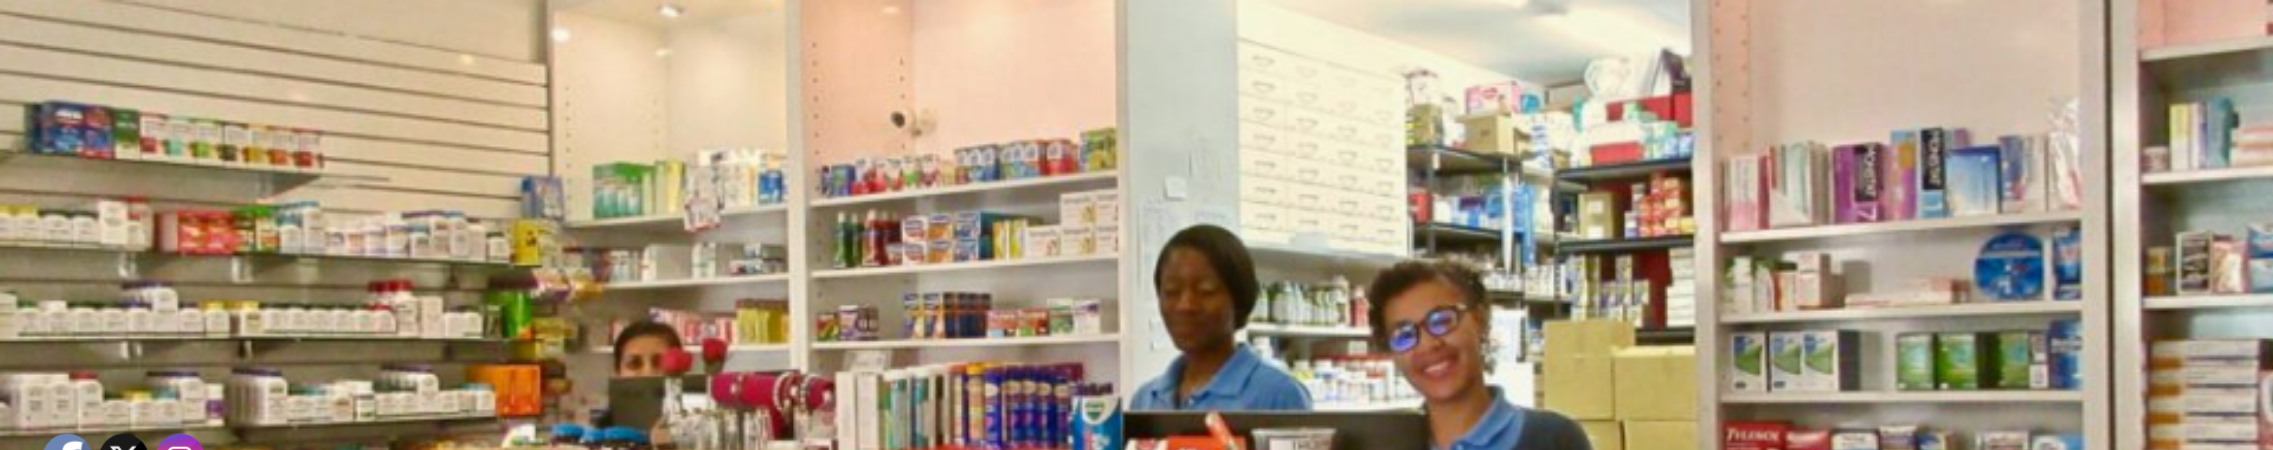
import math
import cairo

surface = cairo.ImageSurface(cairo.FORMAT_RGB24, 2273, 450)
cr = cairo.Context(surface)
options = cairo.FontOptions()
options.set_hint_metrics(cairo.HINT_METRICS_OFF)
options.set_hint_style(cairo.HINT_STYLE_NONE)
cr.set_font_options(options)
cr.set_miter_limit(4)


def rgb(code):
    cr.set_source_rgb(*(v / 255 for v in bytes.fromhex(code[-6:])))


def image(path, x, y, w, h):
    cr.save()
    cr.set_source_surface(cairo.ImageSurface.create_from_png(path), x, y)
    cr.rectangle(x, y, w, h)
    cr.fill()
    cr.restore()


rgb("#ffffff")
cr.paint()
image("img/1.png", 0, 0, 2273, 450)
image("img/2.png", 43, 433, 49, 17)
image("img/3.png", 99, 433, 49, 17)
image("img/4.png", 156, 433, 48, 17)
surface.write_to_png("page.png")
